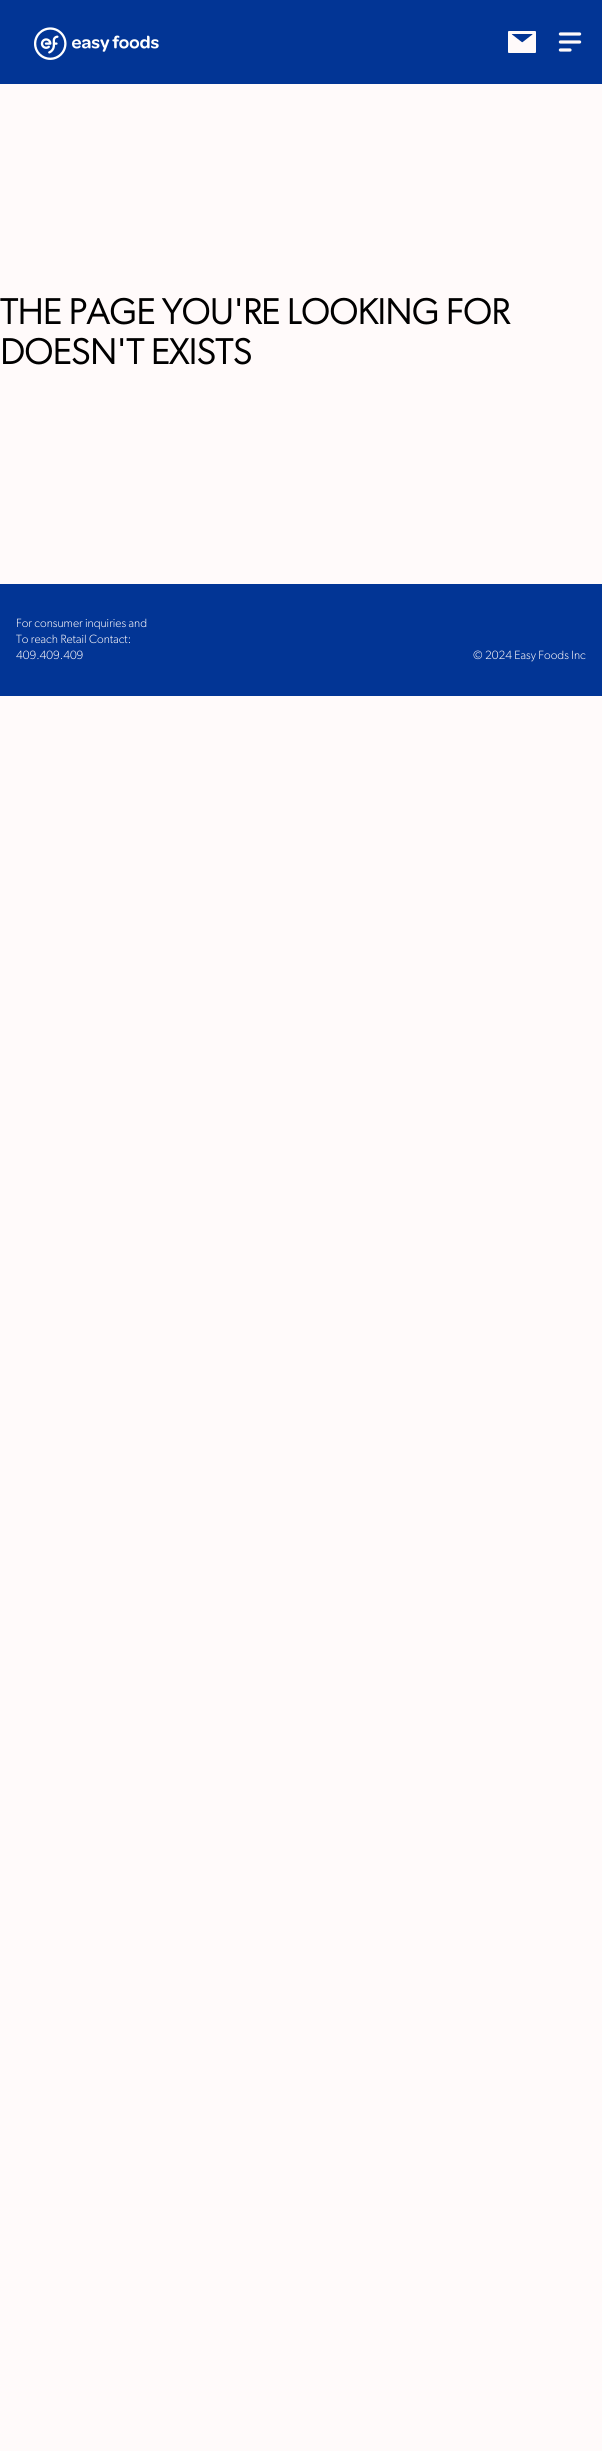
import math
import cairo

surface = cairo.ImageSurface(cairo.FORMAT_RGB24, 602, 2451)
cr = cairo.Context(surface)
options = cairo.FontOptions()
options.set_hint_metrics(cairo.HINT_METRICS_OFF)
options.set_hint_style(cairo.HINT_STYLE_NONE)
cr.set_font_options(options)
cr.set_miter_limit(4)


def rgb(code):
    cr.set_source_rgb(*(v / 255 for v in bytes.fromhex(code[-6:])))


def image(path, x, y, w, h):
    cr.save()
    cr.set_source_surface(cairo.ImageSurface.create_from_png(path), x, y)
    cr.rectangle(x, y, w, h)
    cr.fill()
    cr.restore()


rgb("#fffafa")
cr.paint()
rgb("#023595")
cr.rectangle(0, 0, 602, 84)
cr.fill()
image("img/1.png", 34, 27, 125, 33)
image("img/2.png", 508, 31, 28, 22)
image("img/3.png", 558, 32, 24, 20)
cr.rectangle(0, 584, 602, 112)
cr.fill()
cr.select_font_face("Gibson", cairo.FONT_SLANT_NORMAL, cairo.FONT_WEIGHT_BOLD)
cr.set_font_size(36)
rgb("#000000")
cr.move_to(0, 324)
cr.show_text("THE PAGE YOU'RE LOOKING FOR")
cr.move_to(0, 364)
cr.show_text("DOESN'T EXISTS")
cr.select_font_face("Gibson Light")
cr.set_font_size(12)
rgb("#fffafa")
for x, y, s in [
    (16, 627, "For consumer inquiries and"),
    (16, 643, "To reach Retail Contact:"),
    (16, 659, "409.409.409"),
    (473, 659, "© 2024 Easy Foods Inc"),
]:
    cr.move_to(x, y)
    cr.show_text(s)
surface.write_to_png("page.png")
